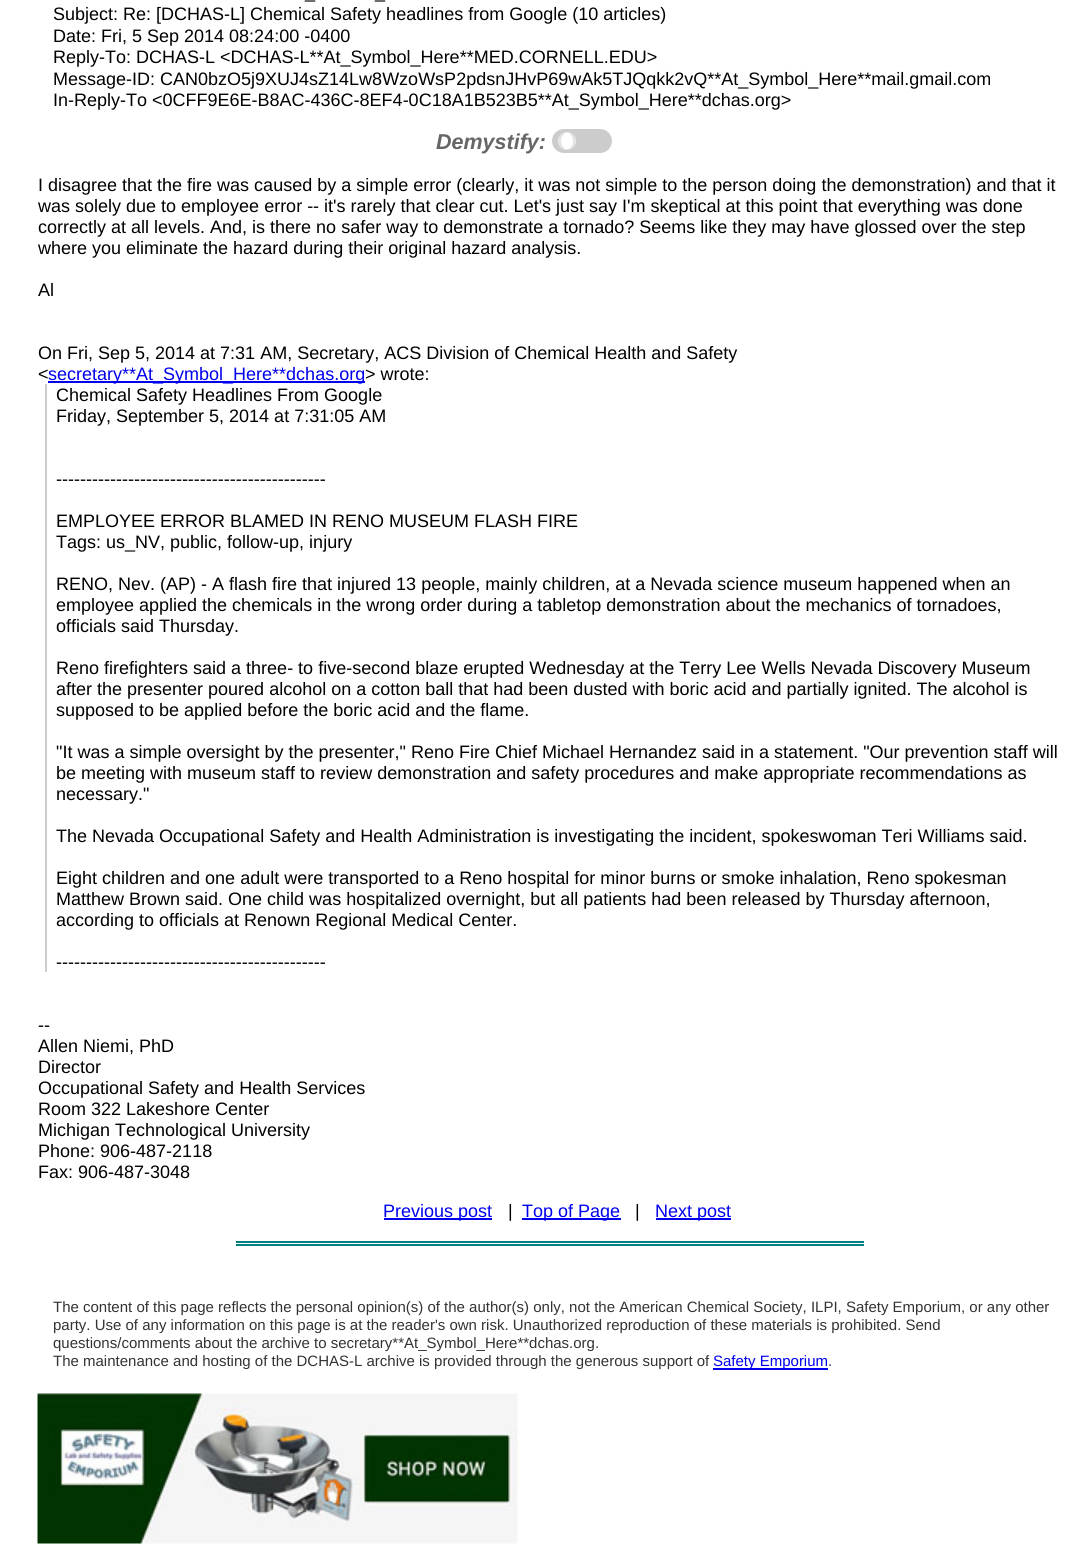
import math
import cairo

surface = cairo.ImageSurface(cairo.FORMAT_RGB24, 1074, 1548)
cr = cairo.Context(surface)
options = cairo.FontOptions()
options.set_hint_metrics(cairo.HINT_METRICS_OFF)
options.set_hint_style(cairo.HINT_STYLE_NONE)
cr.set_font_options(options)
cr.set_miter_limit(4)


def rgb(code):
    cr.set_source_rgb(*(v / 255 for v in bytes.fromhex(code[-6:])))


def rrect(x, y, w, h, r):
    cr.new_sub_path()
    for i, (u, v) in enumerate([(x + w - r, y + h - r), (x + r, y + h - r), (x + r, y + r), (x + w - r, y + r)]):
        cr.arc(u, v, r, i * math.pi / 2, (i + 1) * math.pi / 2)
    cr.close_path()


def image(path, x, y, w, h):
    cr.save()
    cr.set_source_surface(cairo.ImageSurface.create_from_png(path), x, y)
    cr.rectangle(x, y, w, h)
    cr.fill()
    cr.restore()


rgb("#ffffff")
cr.paint()
rgb("#cccccc")
rrect(552, 129, 60, 24, 12)
cr.fill()
rgb("#ffffff")
cr.arc(567, 141, 9, 0, 2 * math.pi)
cr.fill()
cr.set_source_rgba(0.784, 0.784, 0.784, 0.5)
cr.new_path()
cr.move_to(567, 132)
cr.curve_to(554, 132, 556, 152, 568.5, 150)
cr.curve_to(558.5, 148.5, 558.5, 133.5, 568.5, 132)
cr.close_path()
cr.fill()
cr.new_path()
cr.move_to(567, 132)
cr.line_to(565.5, 132)
cr.curve_to(575.5, 133.5, 575.5, 148.5, 565.5, 150)
cr.curve_to(578, 152, 580, 132, 567, 132)
cr.close_path()
cr.fill()
for x, y, w, h, color in [
    (48, 381, 317, 2, "#0000ee"),
    (45, 384, 2, 588, "#cccccc"),
    (384, 1218, 108, 2, "#0000ee"),
    (522, 1218, 99, 2, "#0000ee"),
    (656, 1218, 75, 2, "#0000ee"),
    (236, 1241, 628, 2, "#008080"),
    (236, 1244, 628, 2, "#008080"),
    (713, 1368, 115, 2, "#0000ee"),
]:
    rgb(color)
    cr.rectangle(x, y, w, h)
    cr.fill()
image("img/1.png", 37, 1393, 481, 151)
cr.select_font_face("Liberation Sans")
cr.set_font_size(18)
rgb("#000000")
for x, y, s in [
    (305, -2, "_"),
    (375, -2, "_"),
    (53, 20, "Subject: Re: [DCHAS-L] Chemical Safety headlines from Google (10 articles)"),
    (53, 42, "Date: Fri, 5 Sep 2014 08:24:00 -0400"),
    (53, 63, "Reply-To: DCHAS-L <DCHAS-L**At_Symbol_Here**MED.CORNELL.EDU>"),
    (53, 85, "Message-ID: CAN0bzO5j9XUJ4sZ14Lw8WzoWsP2pdsnJHvP69wAk5TJQqkk2vQ**At_Symbol_Here**mail.gmail.com"),
    (53, 106, "In-Reply-To <0CFF9E6E-B8AC-436C-8EF4-0C18A1B523B5**At_Symbol_Here**dchas.org>"),
]:
    cr.move_to(x, y)
    cr.show_text(s)
cr.select_font_face("Liberation Sans", cairo.FONT_SLANT_ITALIC, cairo.FONT_WEIGHT_BOLD)
cr.set_font_size(21.5)
rgb("#666666")
cr.move_to(436, 149)
cr.show_text("Demystify:")
cr.select_font_face("Liberation Sans")
cr.set_font_size(18)
rgb("#000000")
for x, y, s in [
    (38, 191, "I disagree that the fire was caused by a simple error (clearly, it was not simple to the person doing the demonstration) and that it"),
    (38, 212, "was solely due to employee error -- it's rarely that clear cut. Let's just say I'm skeptical at this point that everything was done"),
    (38, 233, "correctly at all levels. And, is there no safer way to demonstrate a tornado? Seems like they may have glossed over the step"),
    (38, 254, "where you eliminate the hazard during their original hazard analysis."),
    (38, 296, "Al"),
    (38, 359, "On Fri, Sep 5, 2014 at 7:31 AM, Secretary, ACS Division of Chemical Health and Safety"),
    (38, 380, "<"),
]:
    cr.move_to(x, y)
    cr.show_text(s)
rgb("#0000ee")
cr.move_to(48, 380)
cr.show_text("secretary**At_Symbol_Here**dchas.org")
rgb("#000000")
for x, y, s in [
    (365, 380, "> wrote:"),
    (56, 401, "Chemical Safety Headlines From Google"),
    (56, 422, "Friday, September 5, 2014 at 7:31:05 AM"),
    (56, 485, "---------------------------------------------"),
    (56, 527, "EMPLOYEE ERROR BLAMED IN RENO MUSEUM FLASH FIRE"),
    (56, 548, "Tags: us_NV, public, follow-up, injury"),
    (56, 590, "RENO, Nev. (AP) - A flash fire that injured 13 people, mainly children, at a Nevada science museum happened when an"),
    (56, 611, "employee applied the chemicals in the wrong order during a tabletop demonstration about the mechanics of tornadoes,"),
    (56, 632, "officials said Thursday."),
    (56, 674, "Reno firefighters said a three- to five-second blaze erupted Wednesday at the Terry Lee Wells Nevada Discovery Museum"),
    (56, 695, "after the presenter poured alcohol on a cotton ball that had been dusted with boric acid and partially ignited. The alcohol is"),
    (56, 716, "supposed to be applied before the boric acid and the flame."),
    (56, 758, "\"It was a simple oversight by the presenter,\" Reno Fire Chief Michael Hernandez said in a statement. \"Our prevention staff will"),
    (56, 779, "be meeting with museum staff to review demonstration and safety procedures and make appropriate recommendations as"),
    (56, 800, "necessary.\""),
    (56, 842, "The Nevada Occupational Safety and Health Administration is investigating the incident, spokeswoman Teri Williams said."),
    (56, 884, "Eight children and one adult were transported to a Reno hospital for minor burns or smoke inhalation, Reno spokesman"),
    (56, 905, "Matthew Brown said. One child was hospitalized overnight, but all patients had been released by Thursday afternoon,"),
    (56, 926, "according to officials at Renown Regional Medical Center."),
    (56, 968, "---------------------------------------------"),
    (38, 1031, "--"),
    (38, 1052, "Allen Niemi, PhD"),
    (38, 1073, "Director"),
    (38, 1094, "Occupational Safety and Health Services"),
    (38, 1115, "Room 322 Lakeshore Center"),
    (38, 1136, "Michigan Technological University"),
    (38, 1157, "Phone: 906-487-2118"),
    (38, 1178, "Fax: 906-487-3048"),
]:
    cr.move_to(x, y)
    cr.show_text(s)
rgb("#0000ee")
cr.move_to(383, 1217)
cr.show_text("Previous post")
rgb("#000000")
cr.move_to(508, 1217)
cr.show_text("|")
rgb("#0000ee")
cr.move_to(522, 1217)
cr.show_text("Top of Page")
rgb("#000000")
cr.move_to(635, 1217)
cr.show_text("|")
rgb("#0000ee")
cr.move_to(655, 1217)
cr.show_text("Next post")
cr.set_font_size(15)
rgb("#333333")
for x, y, s in [
    (53, 1312, "The content of this page reflects the personal opinion(s) of the author(s) only, not the American Chemical Society, ILPI, Safety Emporium, or any other"),
    (53, 1330, "party. Use of any information on this page is at the reader's own risk. Unauthorized reproduction of these materials is prohibited. Send"),
    (53, 1348, "questions/comments about the archive to secretary**At_Symbol_Here**dchas.org."),
    (53, 1366, "The maintenance and hosting of the DCHAS-L archive is provided through the generous support of"),
]:
    cr.move_to(x, y)
    cr.show_text(s)
rgb("#0000ee")
cr.move_to(713, 1366)
cr.show_text("Safety Emporium")
rgb("#333333")
cr.move_to(828, 1366)
cr.show_text(".")
surface.write_to_png("page.png")
